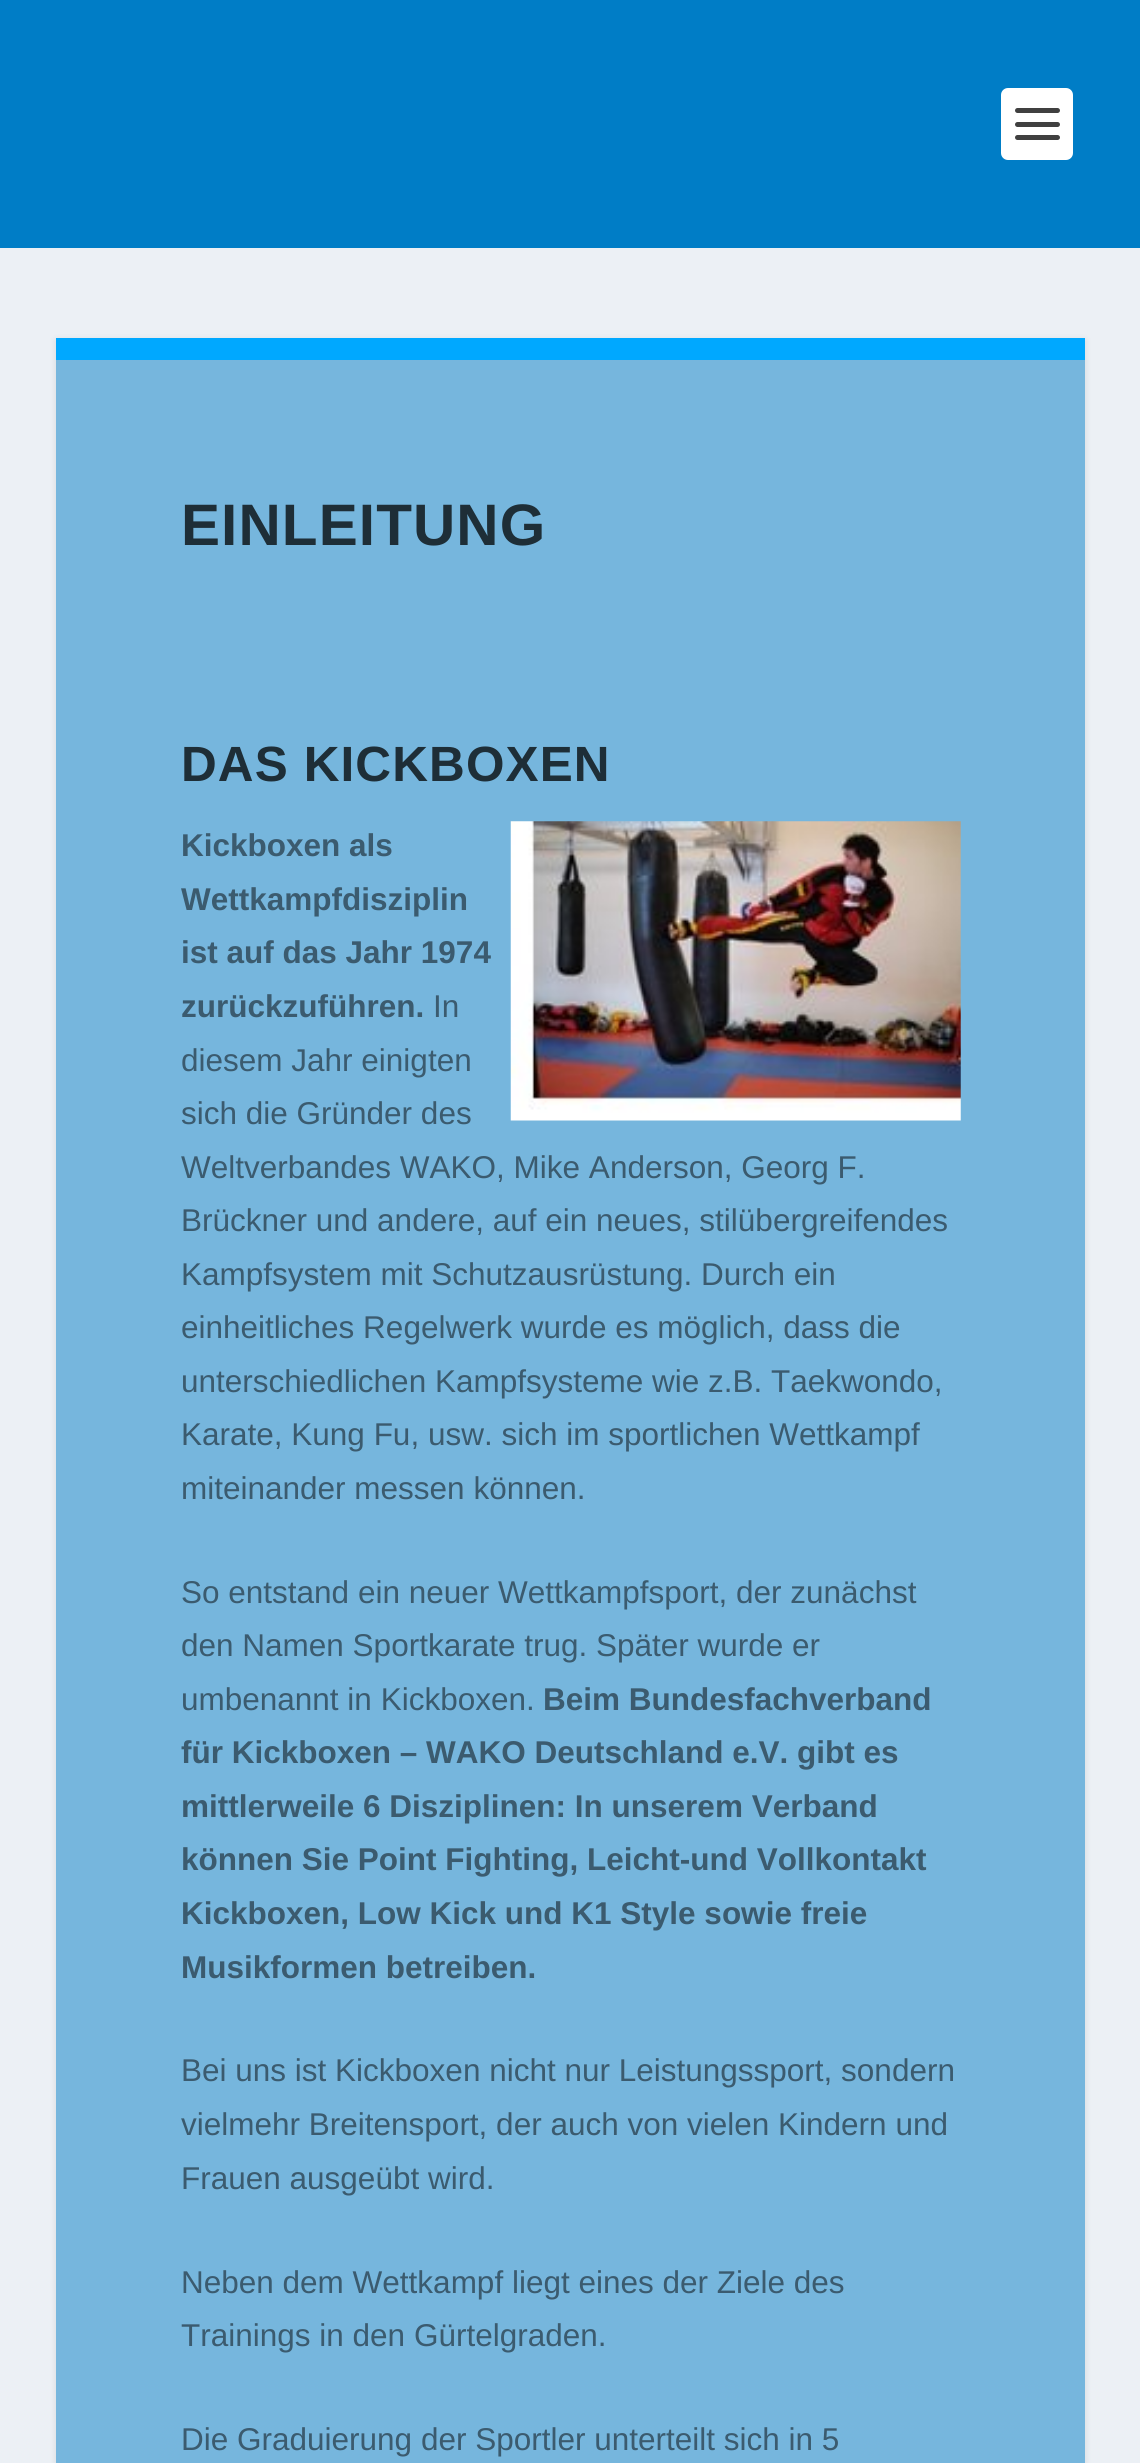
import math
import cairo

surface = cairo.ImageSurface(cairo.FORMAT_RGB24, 1140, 2463)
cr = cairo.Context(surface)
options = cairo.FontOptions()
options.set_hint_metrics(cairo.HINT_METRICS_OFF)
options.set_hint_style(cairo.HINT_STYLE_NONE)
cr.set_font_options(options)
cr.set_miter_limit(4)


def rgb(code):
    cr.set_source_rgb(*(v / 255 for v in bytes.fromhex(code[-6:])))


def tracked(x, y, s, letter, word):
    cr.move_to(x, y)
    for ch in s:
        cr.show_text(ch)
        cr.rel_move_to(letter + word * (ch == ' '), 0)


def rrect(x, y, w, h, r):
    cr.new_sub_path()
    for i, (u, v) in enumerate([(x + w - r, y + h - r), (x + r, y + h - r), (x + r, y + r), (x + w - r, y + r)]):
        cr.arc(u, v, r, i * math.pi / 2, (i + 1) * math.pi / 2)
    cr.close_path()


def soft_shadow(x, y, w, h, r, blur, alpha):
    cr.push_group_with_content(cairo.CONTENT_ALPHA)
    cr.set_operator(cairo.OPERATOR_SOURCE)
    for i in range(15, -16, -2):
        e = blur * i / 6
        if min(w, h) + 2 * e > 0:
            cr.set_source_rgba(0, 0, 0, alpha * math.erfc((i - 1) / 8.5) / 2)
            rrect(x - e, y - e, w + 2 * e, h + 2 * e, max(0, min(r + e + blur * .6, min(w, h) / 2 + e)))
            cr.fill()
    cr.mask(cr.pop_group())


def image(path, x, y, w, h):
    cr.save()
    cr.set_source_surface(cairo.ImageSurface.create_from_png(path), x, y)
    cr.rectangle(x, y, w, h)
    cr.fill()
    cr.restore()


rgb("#ecf0f5")
cr.paint()
rgb("#007dc6")
cr.rectangle(0, 0, 1140, 248)
cr.fill()
rgb("#ffffff")
rrect(1001, 88, 72, 72, 7)
cr.fill()
rgb("#404040")
rrect(1015, 108, 45, 5, 2.5)
cr.fill()
rrect(1015, 122, 45, 5, 2.5)
cr.fill()
rrect(1015, 135, 45, 5, 2.5)
cr.fill()
cr.save()
cr.set_fill_rule(cairo.FILL_RULE_EVEN_ODD)
cr.new_path()
cr.move_to(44, 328)
cr.line_to(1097, 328)
cr.line_to(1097, 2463)
cr.line_to(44, 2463)
cr.close_path()
cr.move_to(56, 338)
cr.line_to(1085, 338)
cr.line_to(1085, 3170)
cr.line_to(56, 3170)
cr.close_path()
cr.clip()
rgb("#000000")
soft_shadow(56, 340, 1029, 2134, 0, 3.5, 0.1)
cr.restore()
cr.set_source_rgba(0, 0.49, 0.776, 0.5)
cr.rectangle(56, 360, 1029, 2103)
cr.fill()
rgb("#00a8ff")
cr.rectangle(56, 338, 1029, 22)
cr.fill()
image("img/1.png", 510, 821, 451, 300)
cr.select_font_face("Liberation Sans", cairo.FONT_SLANT_NORMAL, cairo.FONT_WEIGHT_BOLD)
cr.set_font_size(58.5)
rgb("#1e2e37")
tracked(181, 545, "EINLEITUNG", 1.1, 0)
cr.set_font_size(49.5)
tracked(181, 781, "DAS KICKBOXEN", 1.1, 0)
cr.set_font_size(31.5)
rgb("#3b5b6f")
for x, y, s in [
    (181, 856, "Kickboxen als"),
    (181, 910, "Wettkampfdisziplin"),
    (181, 963, "ist auf das Jahr 1974"),
    (181, 1017, "zurückzuführen."),
]:
    cr.move_to(x, y)
    cr.show_text(s)
cr.select_font_face("Liberation Sans")
for x, y, s in [
    (433, 1017, "In"),
    (181, 1071, "diesem Jahr einigten"),
    (181, 1124, "sich die Gründer des"),
    (181, 1178, "Weltverbandes WAKO, Mike Anderson, Georg F."),
    (181, 1231, "Brückner und andere, auf ein neues, stilübergreifendes"),
    (181, 1285, "Kampfsystem mit Schutzausrüstung. Durch ein"),
    (181, 1338, "einheitliches Regelwerk wurde es möglich, dass die"),
    (181, 1392, "unterschiedlichen Kampfsysteme wie z.B. Taekwondo,"),
    (181, 1445, "Karate, Kung Fu, usw. sich im sportlichen Wettkampf"),
    (181, 1499, "miteinander messen können."),
    (181, 1603, "So entstand ein neuer Wettkampfsport, der zunächst"),
    (181, 1656, "den Namen Sportkarate trug. Später wurde er"),
    (181, 1710, "umbenannt in Kickboxen."),
]:
    cr.move_to(x, y)
    cr.show_text(s)
cr.select_font_face("Liberation Sans", cairo.FONT_SLANT_NORMAL, cairo.FONT_WEIGHT_BOLD)
for x, y, s in [
    (543, 1710, "Beim Bundesfachverband"),
    (181, 1763, "für Kickboxen – WAKO Deutschland e.V. gibt es"),
    (181, 1817, "mittlerweile 6 Disziplinen: In unserem Verband"),
    (181, 1870, "können Sie Point Fighting, Leicht-und Vollkontakt"),
    (181, 1924, "Kickboxen, Low Kick und K1 Style sowie freie"),
    (181, 1978, "Musikformen betreiben."),
]:
    cr.move_to(x, y)
    cr.show_text(s)
cr.select_font_face("Liberation Sans")
for x, y, s in [
    (181, 2081, "Bei uns ist Kickboxen nicht nur Leistungssport, sondern"),
    (181, 2135, "vielmehr Breitensport, der auch von vielen Kindern und"),
    (181, 2189, "Frauen ausgeübt wird."),
    (181, 2293, "Neben dem Wettkampf liegt eines der Ziele des"),
    (181, 2346, "Trainings in den Gürtelgraden."),
    (181, 2450, "Die Graduierung der Sportler unterteilt sich in 5"),
]:
    cr.move_to(x, y)
    cr.show_text(s)
surface.write_to_png("page.png")
